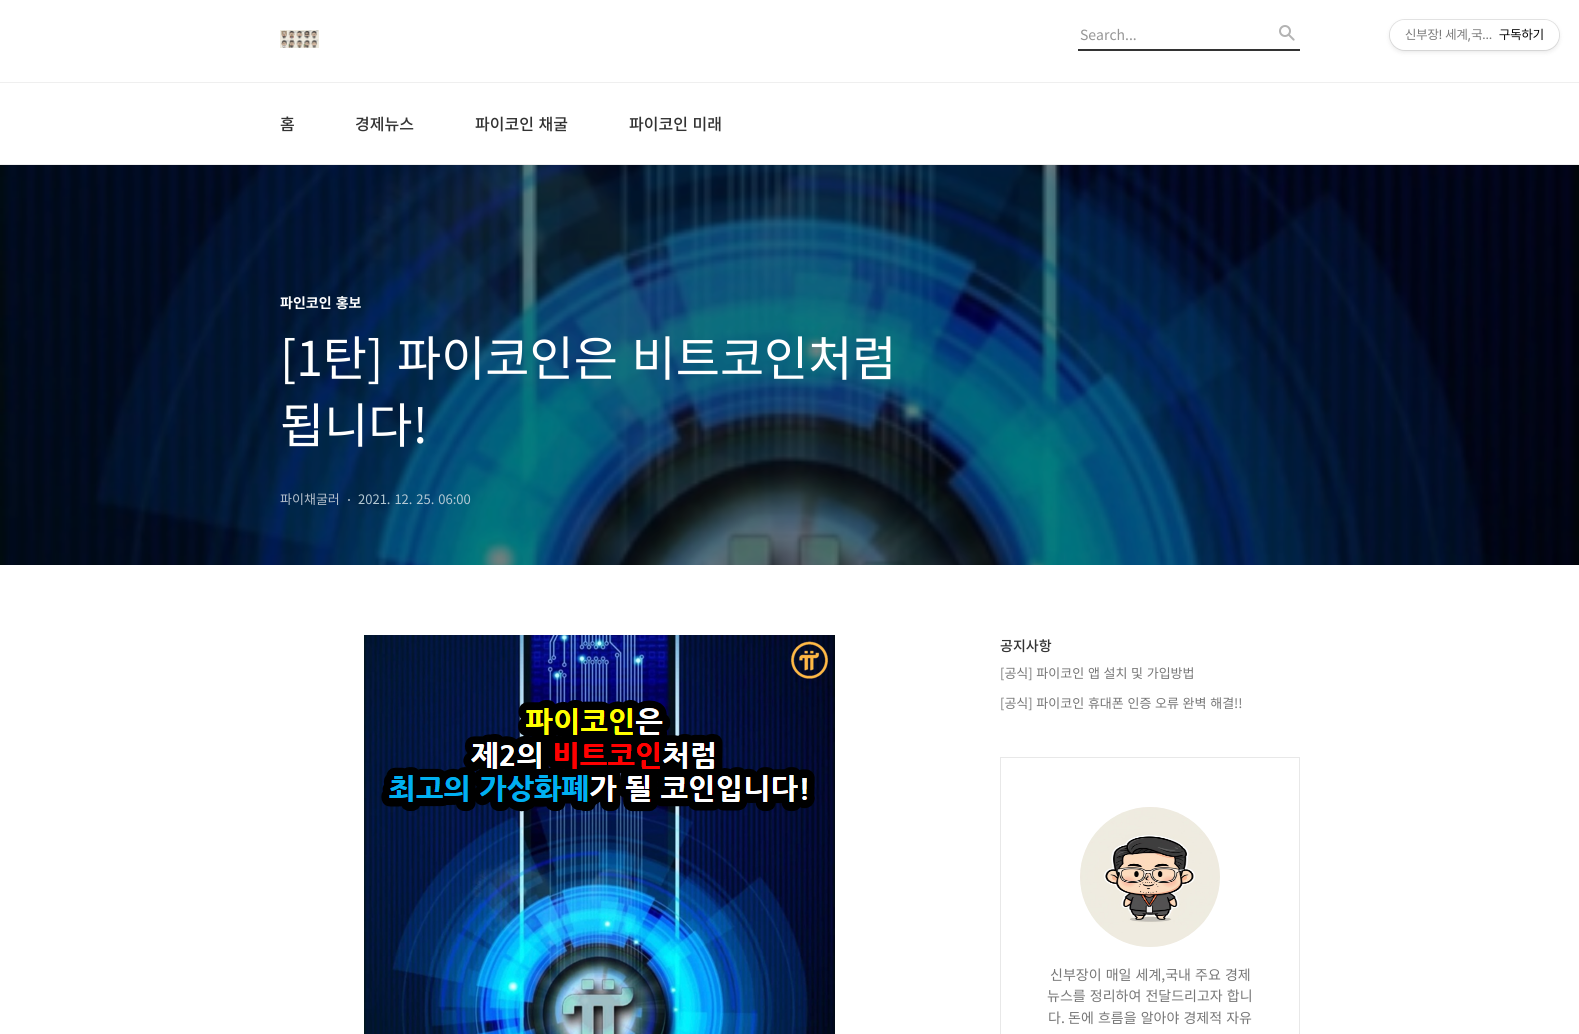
import math
import cairo

surface = cairo.ImageSurface(cairo.FORMAT_RGB24, 1579, 1034)
cr = cairo.Context(surface)
options = cairo.FontOptions()
options.set_hint_metrics(cairo.HINT_METRICS_OFF)
options.set_hint_style(cairo.HINT_STYLE_NONE)
cr.set_font_options(options)
cr.set_miter_limit(4)


def rgb(code):
    cr.set_source_rgb(*(v / 255 for v in bytes.fromhex(code[-6:])))


def tracked(x, y, s, letter, word):
    cr.move_to(x, y)
    for ch in s:
        cr.show_text(ch)
        cr.rel_move_to(letter + word * (ch == ' '), 0)


def rrect(x, y, w, h, r):
    cr.new_sub_path()
    for i, (u, v) in enumerate([(x + w - r, y + h - r), (x + r, y + h - r), (x + r, y + r), (x + w - r, y + r)]):
        cr.arc(u, v, r, i * math.pi / 2, (i + 1) * math.pi / 2)
    cr.close_path()


def soft_shadow(x, y, w, h, r, blur, alpha):
    cr.push_group_with_content(cairo.CONTENT_ALPHA)
    cr.set_operator(cairo.OPERATOR_SOURCE)
    for i in range(15, -16, -2):
        e = blur * i / 6
        if min(w, h) + 2 * e > 0:
            cr.set_source_rgba(0, 0, 0, alpha * math.erfc((i - 1) / 8.5) / 2)
            rrect(x - e, y - e, w + 2 * e, h + 2 * e, max(0, min(r + e + blur * .6, min(w, h) / 2 + e)))
            cr.fill()
    cr.mask(cr.pop_group())


def image(path, x, y, w, h):
    cr.save()
    cr.set_source_surface(cairo.ImageSurface.create_from_png(path), x, y)
    cr.rectangle(x, y, w, h)
    cr.fill()
    cr.restore()


rgb("#ffffff")
cr.paint()
rgb("#efefef")
cr.rectangle(0, 164, 1579, 1)
cr.fill()
image("img/1.png", 280, 30, 39, 18)
image("img/2.png", 1279, 25, 16, 16)
rgb("#333333")
cr.rectangle(1078, 49, 222, 2)
cr.fill()
rgb("#efefef")
cr.rectangle(0, 82, 1579, 1)
cr.fill()
image("img/3.png", 0, 165, 1579, 400)
rgb("#b3bfca")
cr.arc(349, 500, 1, 0, 2 * math.pi)
cr.fill()
image("img/4.png", 364, 635, 471, 399)
rgb("#e8e8e8")
cr.rectangle(1000, 757, 300, 1)
cr.fill()
cr.new_path()
cr.move_to(1300, 757)
cr.line_to(1300, 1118)
cr.line_to(1299, 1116)
cr.line_to(1299, 758)
cr.close_path()
cr.fill()
cr.new_path()
cr.move_to(1000, 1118)
cr.line_to(1000, 757)
cr.line_to(1001, 758)
cr.line_to(1001, 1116)
cr.close_path()
cr.fill()
image("img/5.png", 1080, 807, 140, 140)
rgb("#000000")
soft_shadow(1390, 22, 169, 30, 15, 2.5, 0.1)
rrect(1389.5, 19.5, 170, 31, 15.5)
cr.set_source_rgba(0, 0, 0, 0.1)
cr.set_line_width(1)
cr.stroke()
rgb("#ffffff")
rrect(1390, 20, 169, 30, 15)
cr.fill()
cr.select_font_face("Noto Sans KR")
cr.set_font_size(14)
rgb("#969696")
cr.move_to(1080, 40)
cr.show_text("Search...")
cr.select_font_face("Noto Sans KR Medium")
cr.set_font_size(16)
rgb("#333333")
cr.move_to(280, 130)
cr.show_text("홈")
cr.move_to(355, 130)
cr.show_text("경제뉴스")
tracked(475, 130, "파이코인 채굴", 0, 1)
tracked(629, 130, "파이코인 미래", 0, 1)
cr.select_font_face("Noto Sans KR", cairo.FONT_SLANT_NORMAL, cairo.FONT_WEIGHT_BOLD)
cr.set_font_size(14)
rgb("#ffffff")
tracked(280, 308, "파인코인 홍보", 0, 1)
cr.select_font_face("Noto Sans KR")
cr.set_font_size(48)
tracked(280, 376, "[1탄] 파이코인은 비트코인처럼", 0, 3)
cr.move_to(280, 443)
cr.show_text("됩니다!")
cr.set_font_size(13)
rgb("#b3becb")
cr.move_to(280, 504)
cr.show_text("파이채굴러")
rgb("#b3c8d3")
tracked(358, 504, "2021. 12. 25. 06:00", 0, 1)
cr.select_font_face("Noto Sans KR Medium")
cr.set_font_size(14)
rgb("#333333")
cr.move_to(1000, 651)
cr.show_text("공지사항")
cr.select_font_face("Noto Sans KR")
cr.set_font_size(13)
rgb("#777777")
tracked(1000, 678, "[공식] 파이코인 앱 설치 및 가입방법", 0, 0.75)
tracked(1000, 708, "[공식] 파이코인 휴대폰 인증 오류 완벽 해결!!", 0, 0.75)
cr.set_font_size(14)
tracked(1050, 980, "신부장이 매일 세계,국내 주요 경제", 0, 1)
tracked(1047, 1001, "뉴스를 정리하여 전달드리고자 합니", 0, 1)
cr.move_to(1048, 1023)
cr.show_text("다.")
tracked(1068, 1023, "돈에 흐름을 알아야 경제적 자유", 0, 1)
cr.select_font_face("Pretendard")
cr.set_font_size(13)
cr.move_to(1405, 39)
cr.show_text("신부장! 세계,국…")
rgb("#000000")
cr.move_to(1499, 39)
cr.show_text("구독하기")
surface.write_to_png("page.png")
